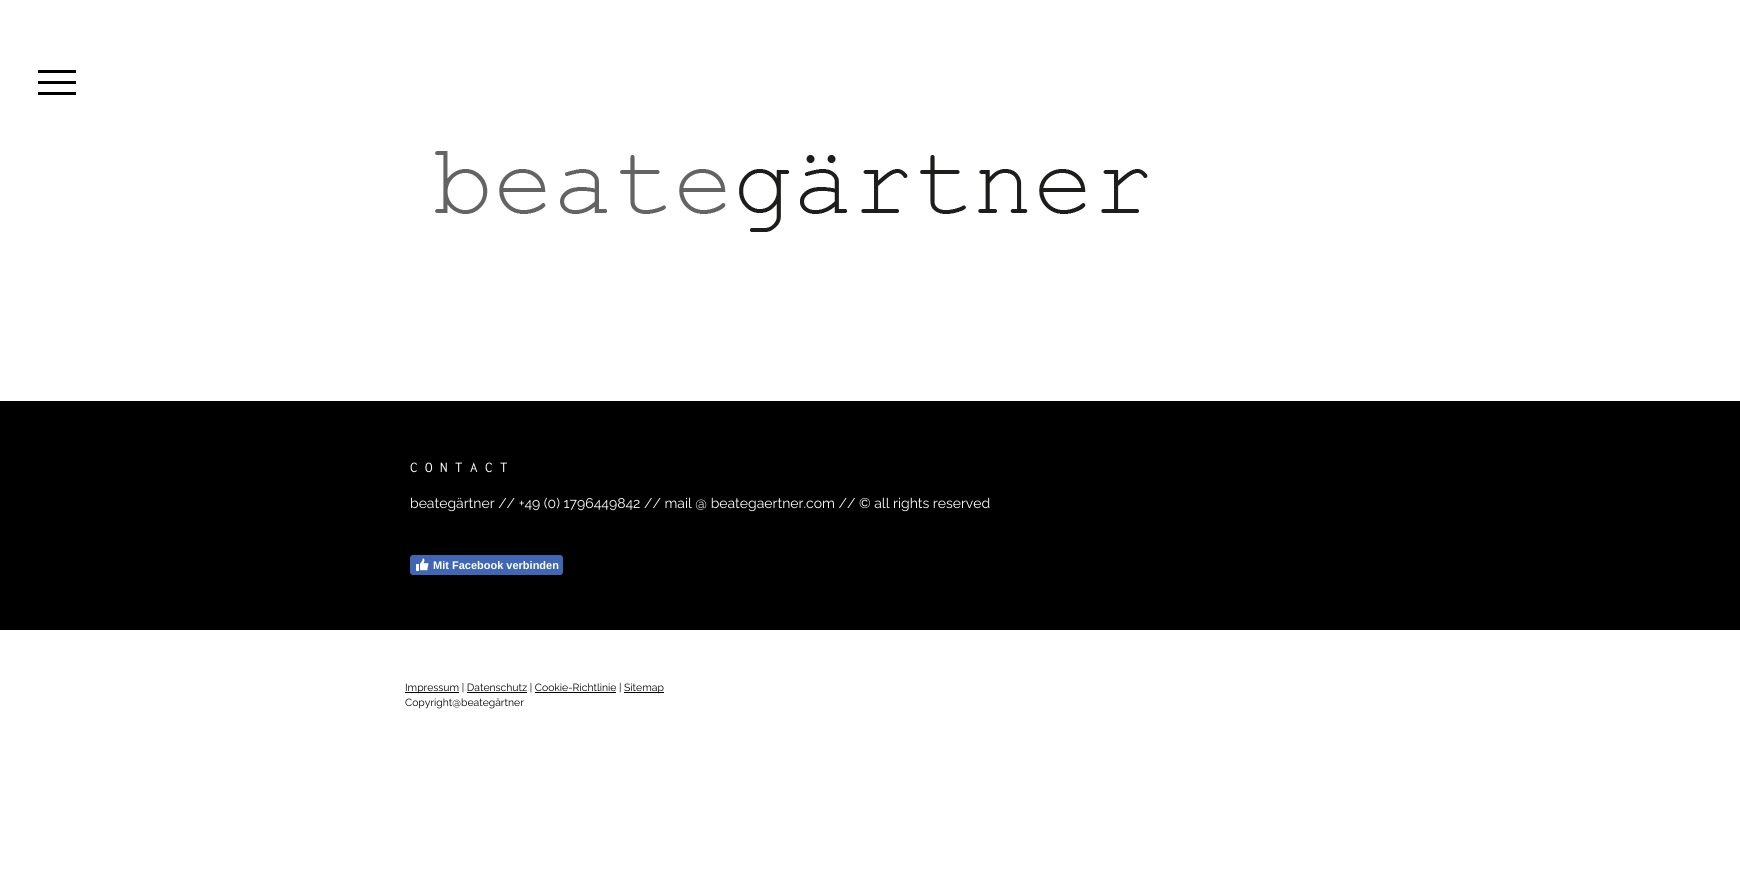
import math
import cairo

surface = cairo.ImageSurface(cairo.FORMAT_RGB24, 1740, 887)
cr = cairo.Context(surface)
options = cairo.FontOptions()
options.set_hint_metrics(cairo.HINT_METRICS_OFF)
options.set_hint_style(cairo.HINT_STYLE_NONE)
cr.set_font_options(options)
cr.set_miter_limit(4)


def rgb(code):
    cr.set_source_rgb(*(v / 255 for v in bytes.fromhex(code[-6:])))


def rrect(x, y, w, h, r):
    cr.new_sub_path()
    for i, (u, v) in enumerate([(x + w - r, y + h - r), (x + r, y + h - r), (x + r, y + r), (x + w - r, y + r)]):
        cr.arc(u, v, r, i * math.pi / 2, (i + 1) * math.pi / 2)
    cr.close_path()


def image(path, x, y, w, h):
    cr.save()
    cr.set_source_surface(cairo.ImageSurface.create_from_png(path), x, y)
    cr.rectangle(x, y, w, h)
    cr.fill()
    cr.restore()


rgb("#ffffff")
cr.paint()
for x, y, w, h, color in [
    (38, 81, 38, 3, "#000000"),
    (38, 70, 38, 3, "#000000"),
    (38, 92, 38, 3, "#000000"),
]:
    rgb(color)
    cr.rectangle(x, y, w, h)
    cr.fill()
image("img/1.png", 435, 151, 713, 81)
cr.rectangle(0, 401, 1740, 229)
cr.fill()
rgb("#4267b2")
rrect(410.5, 555.5, 152, 19, 2.5)
cr.fill_preserve()
cr.set_line_width(1)
cr.stroke()
image("img/2.png", 416, 558, 13, 13)
for x, y, w, h, color in [
    (405, 692, 54, 1, "#000000"),
    (624, 692, 40, 1, "#000000"),
    (467, 692, 60, 1, "#000000"),
    (535, 692, 81, 1, "#000000"),
]:
    rgb(color)
    cr.rectangle(x, y, w, h)
    cr.fill()
cr.select_font_face("Inconsolata")
cr.set_font_size(15)
rgb("#ffffff")
cr.move_to(410, 472)
cr.show_text("C O N T A C T")
cr.select_font_face("Raleway Thin")
cr.set_font_size(14)
cr.move_to(410, 508)
cr.show_text("beategärtner // +49 (0) 1796449842 // mail @ beategaertner.com // © all rights reserved")
cr.select_font_face("Liberation Sans", cairo.FONT_SLANT_NORMAL, cairo.FONT_WEIGHT_BOLD)
cr.set_font_size(11)
cr.move_to(433, 569)
cr.show_text("Mit Facebook verbinden")
cr.select_font_face("Raleway Thin")
cr.set_font_size(10.4)
rgb("#000000")
for x, y, s in [
    (405, 691, "Impressum | Datenschutz | Cookie-Richtlinie |"),
    (624, 691, "Sitemap"),
    (405, 706, "Copyright@beategärtner"),
]:
    cr.move_to(x, y)
    cr.show_text(s)
surface.write_to_png("page.png")
